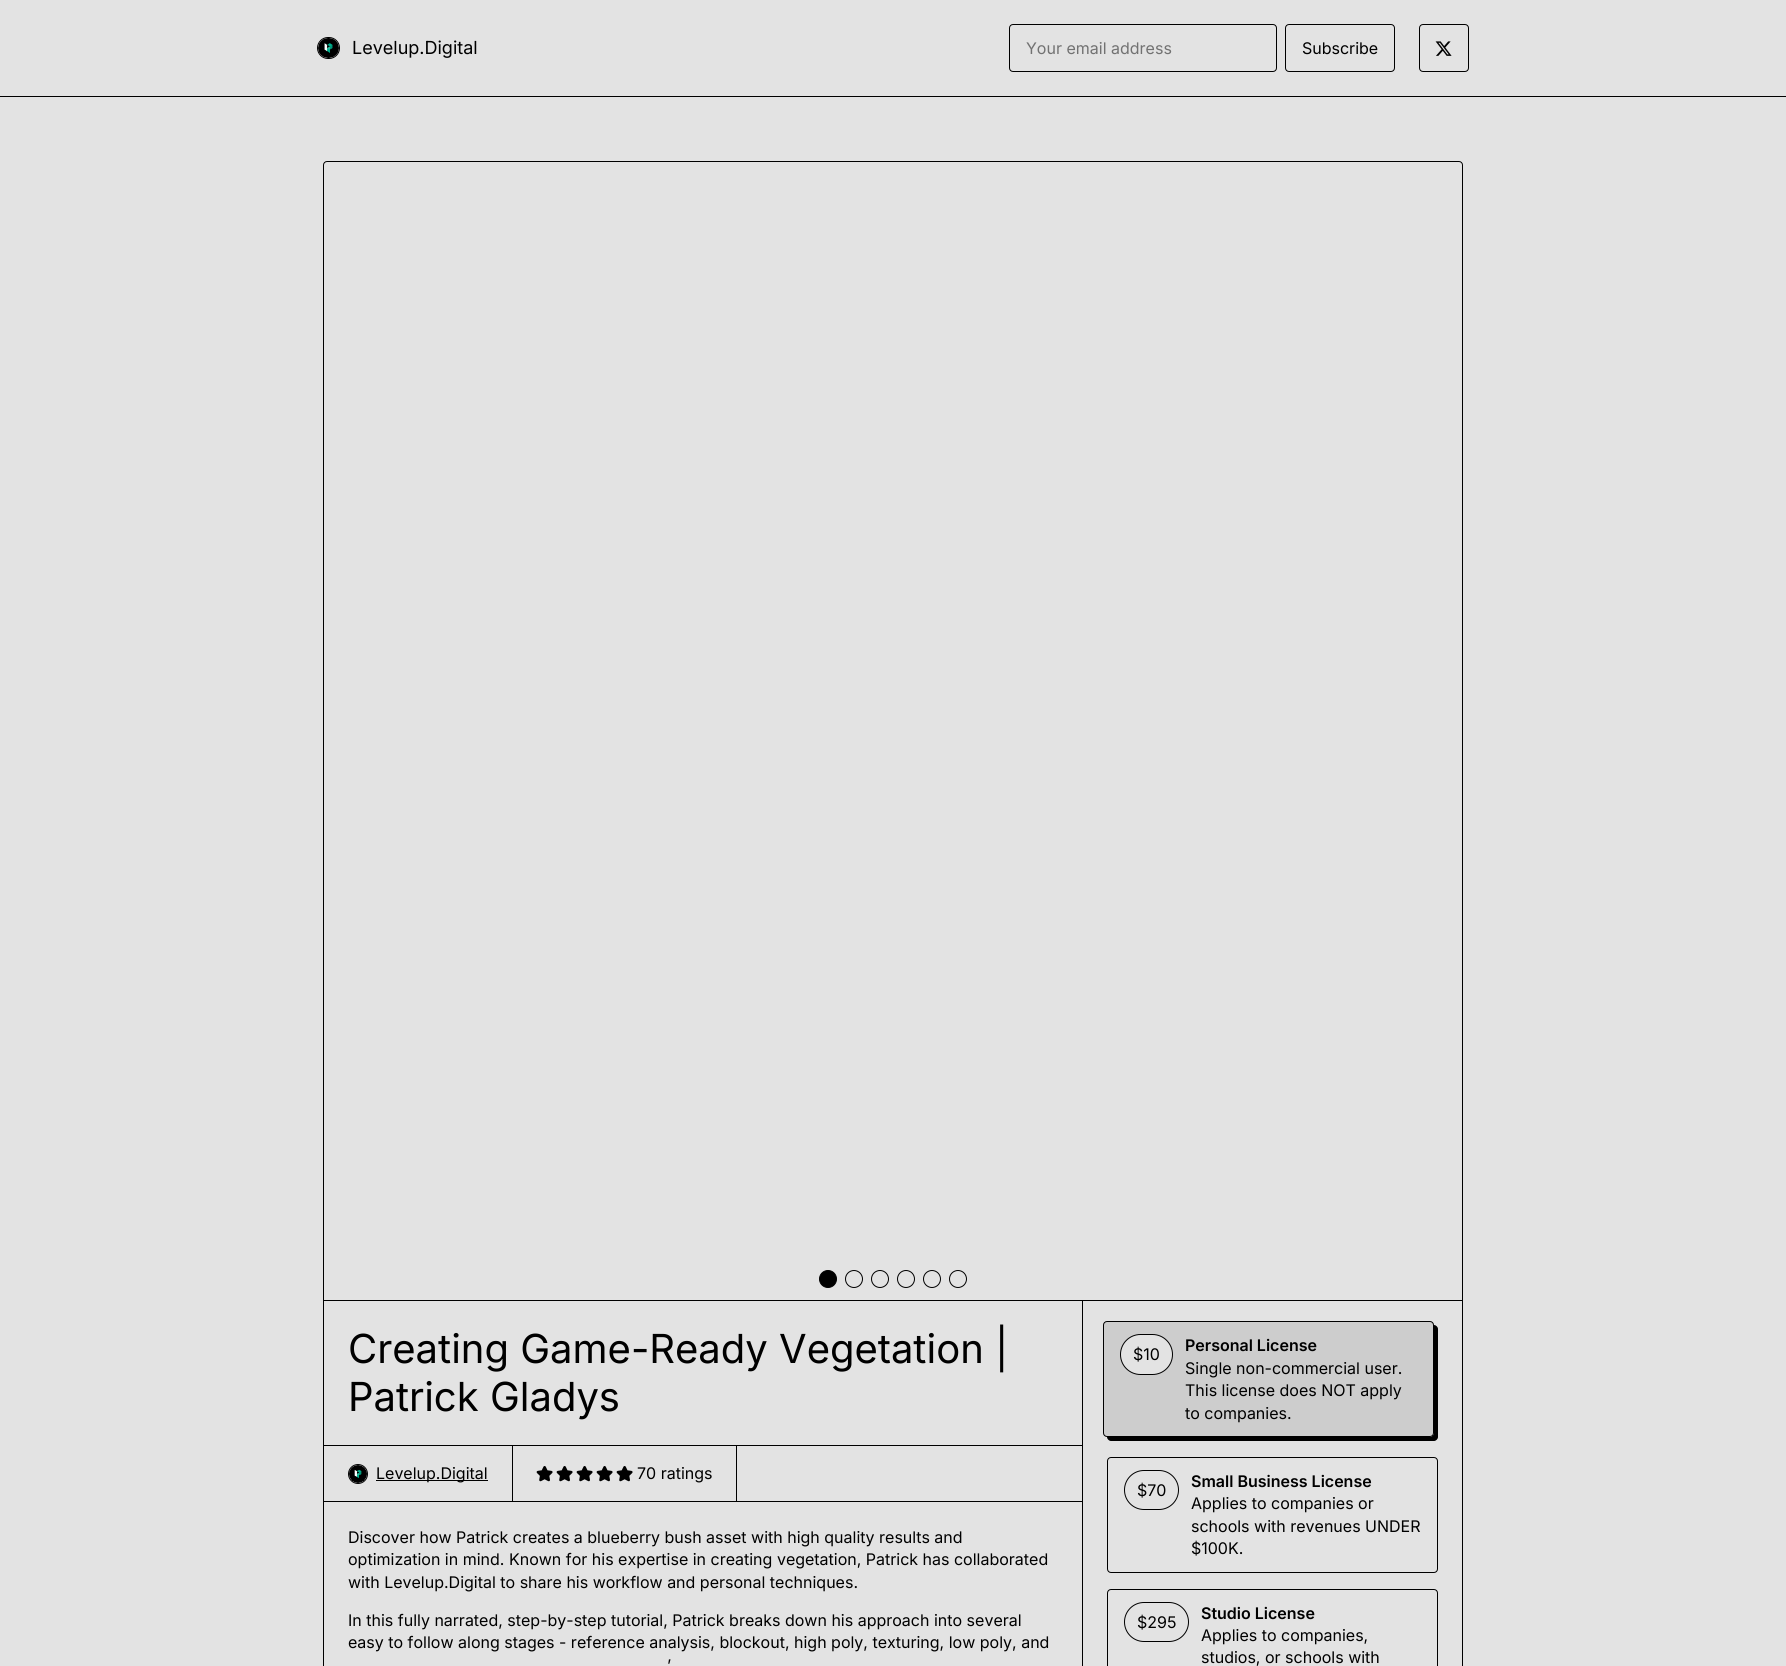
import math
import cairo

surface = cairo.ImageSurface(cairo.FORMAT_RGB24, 1786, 1666)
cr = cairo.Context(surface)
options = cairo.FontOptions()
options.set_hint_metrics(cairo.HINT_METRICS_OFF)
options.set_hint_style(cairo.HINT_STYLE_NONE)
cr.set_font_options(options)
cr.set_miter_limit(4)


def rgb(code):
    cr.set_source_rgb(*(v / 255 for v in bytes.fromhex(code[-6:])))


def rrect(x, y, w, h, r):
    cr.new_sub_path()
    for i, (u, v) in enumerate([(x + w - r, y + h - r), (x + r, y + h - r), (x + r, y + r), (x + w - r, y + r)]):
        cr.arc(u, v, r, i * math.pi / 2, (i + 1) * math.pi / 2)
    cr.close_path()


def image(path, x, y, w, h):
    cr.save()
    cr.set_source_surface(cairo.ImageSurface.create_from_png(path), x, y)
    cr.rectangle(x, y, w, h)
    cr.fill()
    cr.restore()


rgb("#e3e3e3")
cr.paint()
rgb("#000000")
cr.rectangle(0, 96, 1786, 1)
cr.fill()
rrect(317.5, 37.5, 22, 21, 10.5)
cr.set_line_width(1)
cr.stroke()
image("img/1.png", 318, 38, 21, 20)
rrect(1009.5, 24.5, 267, 47, 3.5)
cr.stroke()
rrect(1285.5, 24.5, 109, 47, 3.5)
cr.stroke()
rrect(1419.5, 24.5, 49, 47, 3.5)
cr.stroke()
image("img/2.png", 1435, 41, 17, 15)
rrect(323.5, 161.5, 1139, 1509, 3.5)
cr.stroke()
cr.rectangle(324, 1300, 1138, 1)
cr.fill()
cr.arc(828, 1279, 8.5, 0, 2 * math.pi)
cr.fill_preserve()
cr.stroke()
cr.arc(854, 1279, 8.5, 0, 2 * math.pi)
cr.stroke()
cr.arc(880, 1279, 8.5, 0, 2 * math.pi)
cr.stroke()
cr.arc(906, 1279, 8.5, 0, 2 * math.pi)
cr.stroke()
cr.arc(932, 1279, 8.5, 0, 2 * math.pi)
cr.stroke()
cr.arc(958, 1279, 8.5, 0, 2 * math.pi)
cr.stroke()
cr.rectangle(1082, 1301, 1, 365)
cr.fill()
cr.rectangle(737, 1445, 345, 1)
cr.fill()
cr.rectangle(323.5, 1445.5, 189, 56)
cr.stroke()
cr.arc(358, 1474, 9.5, 0, 2 * math.pi)
cr.stroke()
image("img/3.png", 349, 1465, 18, 18)
cr.rectangle(376, 1480, 112, 1)
cr.fill()
cr.rectangle(512.5, 1445.5, 224, 56)
cr.stroke()
image("img/4.png", 536, 1466, 17, 16)
image("img/4.png", 556, 1466, 17, 16)
image("img/4.png", 576, 1466, 17, 16)
image("img/4.png", 596, 1466, 17, 16)
image("img/4.png", 616, 1466, 17, 16)
cr.rectangle(737, 1501, 345, 1)
cr.fill()
cr.new_path()
cr.move_to(1107, 1437)
cr.curve_to(1107, 1439, 1109, 1441, 1111, 1441)
cr.line_to(1434, 1441)
cr.curve_to(1436, 1441, 1438, 1439, 1438, 1437)
cr.line_to(1438, 1329)
cr.curve_to(1438, 1327, 1436, 1325, 1434, 1325)
cr.line_to(1434, 1433)
cr.curve_to(1434, 1435, 1432, 1437, 1430, 1437)
cr.close_path()
cr.fill()
cr.set_source_rgba(0, 0, 0, 0.1)
rrect(1103.5, 1321.5, 330, 115, 3.5)
cr.fill_preserve()
rgb("#000000")
cr.stroke()
rgb("#e3e3e3")
rrect(1120.5, 1334.5, 52, 40, 20)
cr.fill_preserve()
rgb("#000000")
cr.stroke()
rrect(1107.5, 1457.5, 330, 115, 3.5)
cr.stroke()
rrect(1124.5, 1470.5, 54, 39, 19.5)
cr.stroke()
rrect(1107.5, 1589.5, 330, 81, 3.5)
cr.stroke()
rrect(1124.5, 1602.5, 64, 39, 19.5)
cr.stroke()
cr.select_font_face("Inter")
cr.set_font_size(18)
cr.move_to(352, 54)
cr.show_text("Levelup.Digital")
cr.set_font_size(16)
rgb("#727272")
cr.move_to(1026, 54)
cr.show_text("Your email address")
rgb("#000000")
cr.move_to(1302, 54)
cr.show_text("Subscribe")
cr.set_font_size(40)
cr.move_to(348, 1363)
cr.show_text("Creating Game-Ready Vegetation |")
cr.move_to(348, 1411)
cr.show_text("Patrick Gladys")
cr.set_font_size(16)
for x, y, s in [
    (376, 1479, "Levelup.Digital"),
    (637, 1479, "70 ratings"),
    (348, 1543, "Discover how Patrick creates a blueberry bush asset with high quality results and"),
    (348, 1565, "optimization in mind. Known for his expertise in creating vegetation, Patrick has collaborated"),
    (348, 1588, "with Levelup.Digital to share his workflow and personal techniques."),
    (348, 1626, "In this fully narrated, step-by-step tutorial, Patrick breaks down his approach into several"),
    (348, 1648, "easy to follow along stages - reference analysis, blockout, high poly, texturing, low poly, and"),
    (667, 1671, "’"),
    (1133, 1360, "$10"),
]:
    cr.move_to(x, y)
    cr.show_text(s)
cr.select_font_face("Inter SemiBold")
cr.move_to(1185, 1351)
cr.show_text("Personal License")
cr.select_font_face("Inter")
for x, y, s in [
    (1185, 1374, "Single non-commercial user."),
    (1185, 1396, "This license does NOT apply"),
    (1185, 1419, "to companies."),
    (1137, 1496, "$70"),
]:
    cr.move_to(x, y)
    cr.show_text(s)
cr.select_font_face("Inter SemiBold")
cr.move_to(1191, 1487)
cr.show_text("Small Business License")
cr.select_font_face("Inter")
for x, y, s in [
    (1191, 1509, "Applies to companies or"),
    (1191, 1532, "schools with revenues UNDER"),
    (1191, 1554, "$100K."),
    (1137, 1628, "$295"),
]:
    cr.move_to(x, y)
    cr.show_text(s)
cr.select_font_face("Inter SemiBold")
cr.move_to(1201, 1619)
cr.show_text("Studio License")
cr.select_font_face("Inter")
cr.move_to(1201, 1641)
cr.show_text("Applies to companies,")
cr.move_to(1201, 1663)
cr.show_text("studios, or schools with")
surface.write_to_png("page.png")
